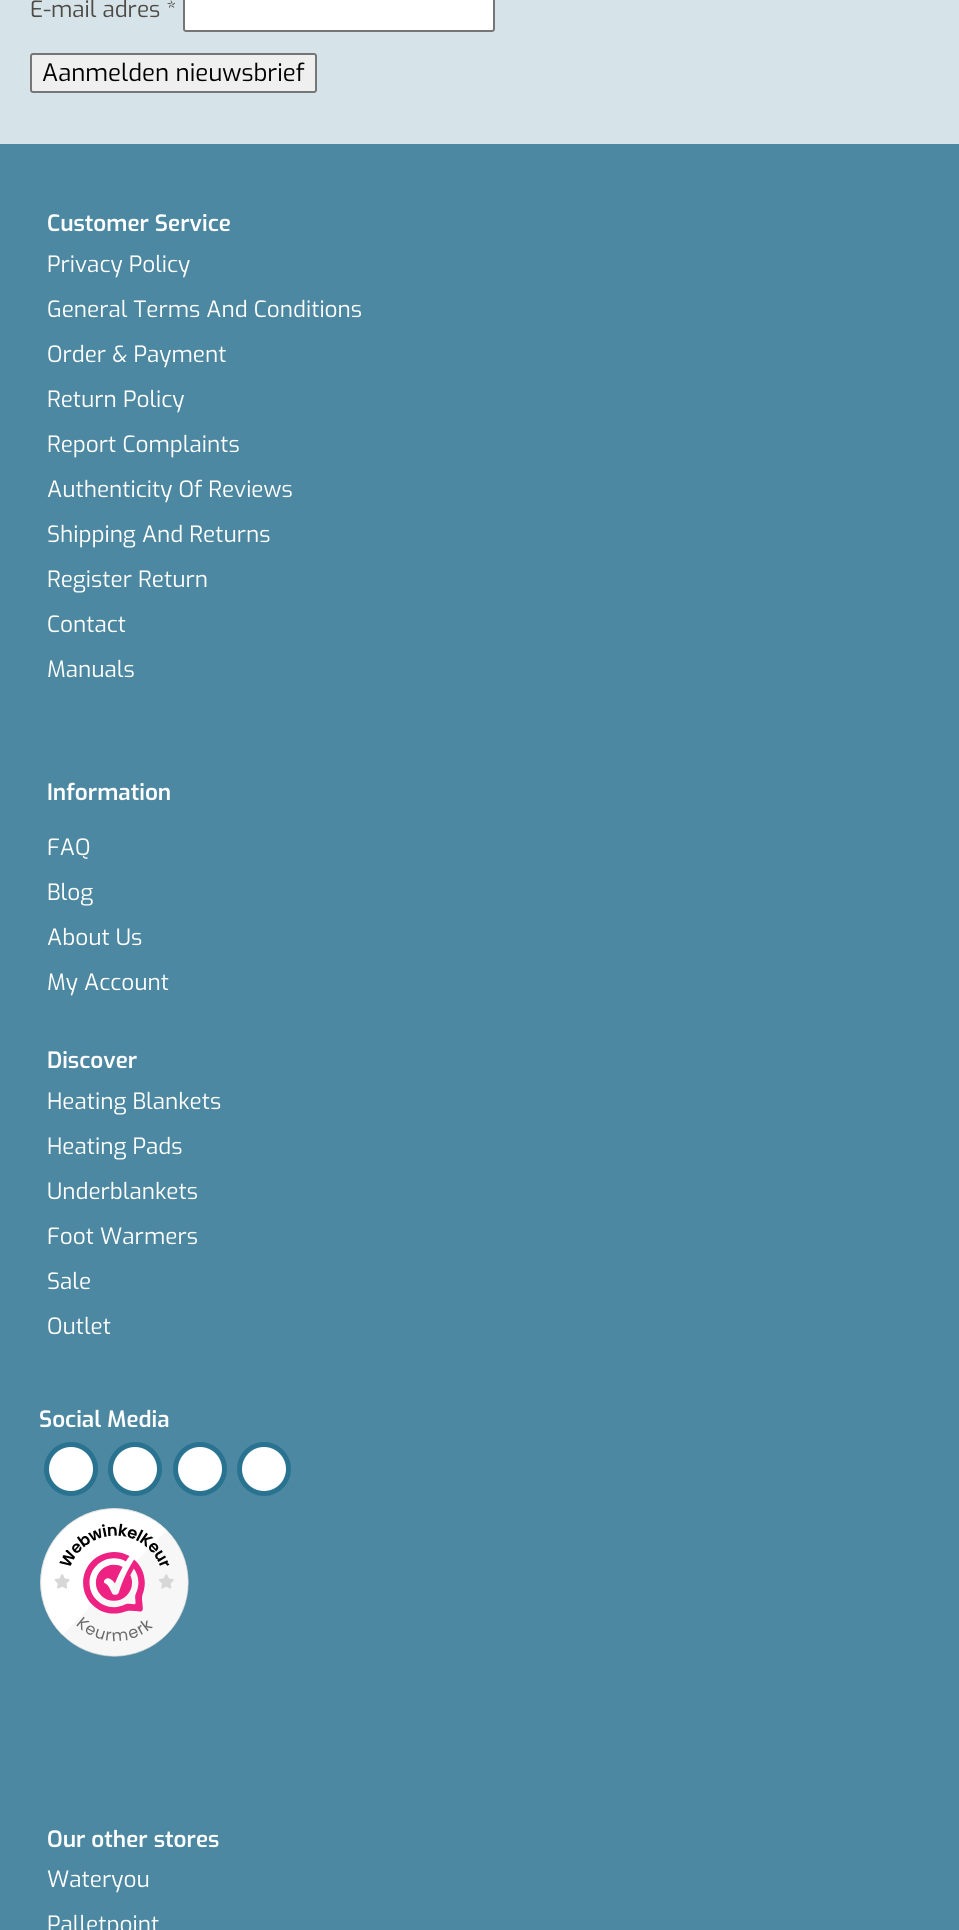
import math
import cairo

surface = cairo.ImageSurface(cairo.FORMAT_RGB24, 959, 1930)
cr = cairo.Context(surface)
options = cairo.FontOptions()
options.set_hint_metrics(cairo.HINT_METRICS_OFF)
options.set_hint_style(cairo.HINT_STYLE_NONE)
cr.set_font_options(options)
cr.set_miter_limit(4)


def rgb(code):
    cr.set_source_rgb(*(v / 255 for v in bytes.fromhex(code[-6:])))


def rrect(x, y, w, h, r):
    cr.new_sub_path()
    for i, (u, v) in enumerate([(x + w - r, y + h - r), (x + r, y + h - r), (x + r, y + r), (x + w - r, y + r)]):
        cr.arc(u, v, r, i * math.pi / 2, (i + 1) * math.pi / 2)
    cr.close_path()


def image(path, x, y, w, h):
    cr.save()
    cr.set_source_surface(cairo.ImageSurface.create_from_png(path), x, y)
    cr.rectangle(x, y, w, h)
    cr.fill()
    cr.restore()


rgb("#d6e3e8")
cr.paint()
rgb("#ffffff")
rrect(184, -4, 310, 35, 2)
cr.fill_preserve()
rgb("#767676")
cr.stroke()
rgb("#efefef")
rrect(31, 54, 285, 38, 2)
cr.fill_preserve()
rgb("#767676")
cr.stroke()
rgb("#4c88a1")
cr.rectangle(0, 144, 959, 1786)
cr.fill()
rgb("#ffffff")
cr.arc(71, 1469, 24.5, 0, 2 * math.pi)
cr.fill_preserve()
rgb("#297391")
cr.set_line_width(5)
cr.stroke()
rgb("#ffffff")
cr.arc(135, 1469, 24.5, 0, 2 * math.pi)
cr.fill_preserve()
rgb("#297391")
cr.stroke()
rgb("#ffffff")
cr.arc(200, 1469, 24.5, 0, 2 * math.pi)
cr.fill_preserve()
rgb("#297391")
cr.stroke()
rgb("#ffffff")
cr.arc(264, 1469, 24.5, 0, 2 * math.pi)
cr.fill_preserve()
rgb("#297391")
cr.stroke()
image("img/1.png", 40, 1508, 149, 149)
cr.select_font_face("Exo")
cr.set_font_size(22.5)
rgb("#4e4b47")
cr.move_to(30, 17)
cr.show_text("E-mail adres *")
cr.set_font_size(24)
rgb("#000000")
cr.move_to(42, 81)
cr.show_text("Aanmelden nieuwsbrief")
cr.select_font_face("Exo SemiBold")
cr.set_font_size(22.5)
rgb("#ffffff")
cr.move_to(47, 231)
cr.show_text("Customer Service")
cr.select_font_face("Exo")
for x, y, s in [
    (47, 272, "Privacy Policy"),
    (47, 317, "General Terms And Conditions"),
    (47, 362, "Order & Payment"),
    (47, 407, "Return Policy"),
    (47, 452, "Report Complaints"),
    (47, 497, "Authenticity Of Reviews"),
    (47, 542, "Shipping And Returns"),
    (47, 587, "Register Return"),
    (47, 632, "Contact"),
    (47, 677, "Manuals"),
]:
    cr.move_to(x, y)
    cr.show_text(s)
cr.select_font_face("Exo SemiBold")
cr.move_to(47, 800)
cr.show_text("Information")
cr.select_font_face("Exo")
for x, y, s in [
    (47, 855, "FAQ"),
    (47, 900, "Blog"),
    (47, 945, "About Us"),
    (47, 990, "My Account"),
]:
    cr.move_to(x, y)
    cr.show_text(s)
cr.select_font_face("Exo SemiBold")
cr.move_to(47, 1068)
cr.show_text("Discover")
cr.select_font_face("Exo")
for x, y, s in [
    (47, 1109, "Heating Blankets"),
    (47, 1154, "Heating Pads"),
    (47, 1199, "Underblankets"),
    (47, 1244, "Foot Warmers"),
    (47, 1289, "Sale"),
    (47, 1334, "Outlet"),
]:
    cr.move_to(x, y)
    cr.show_text(s)
cr.select_font_face("Exo SemiBold")
cr.move_to(39, 1427)
cr.show_text("Social Media")
cr.move_to(47, 1847)
cr.show_text("Our other stores")
cr.select_font_face("Exo")
cr.move_to(47, 1887)
cr.show_text("Wateryou")
cr.move_to(47, 1932)
cr.show_text("Palletpoint")
surface.write_to_png("page.png")
